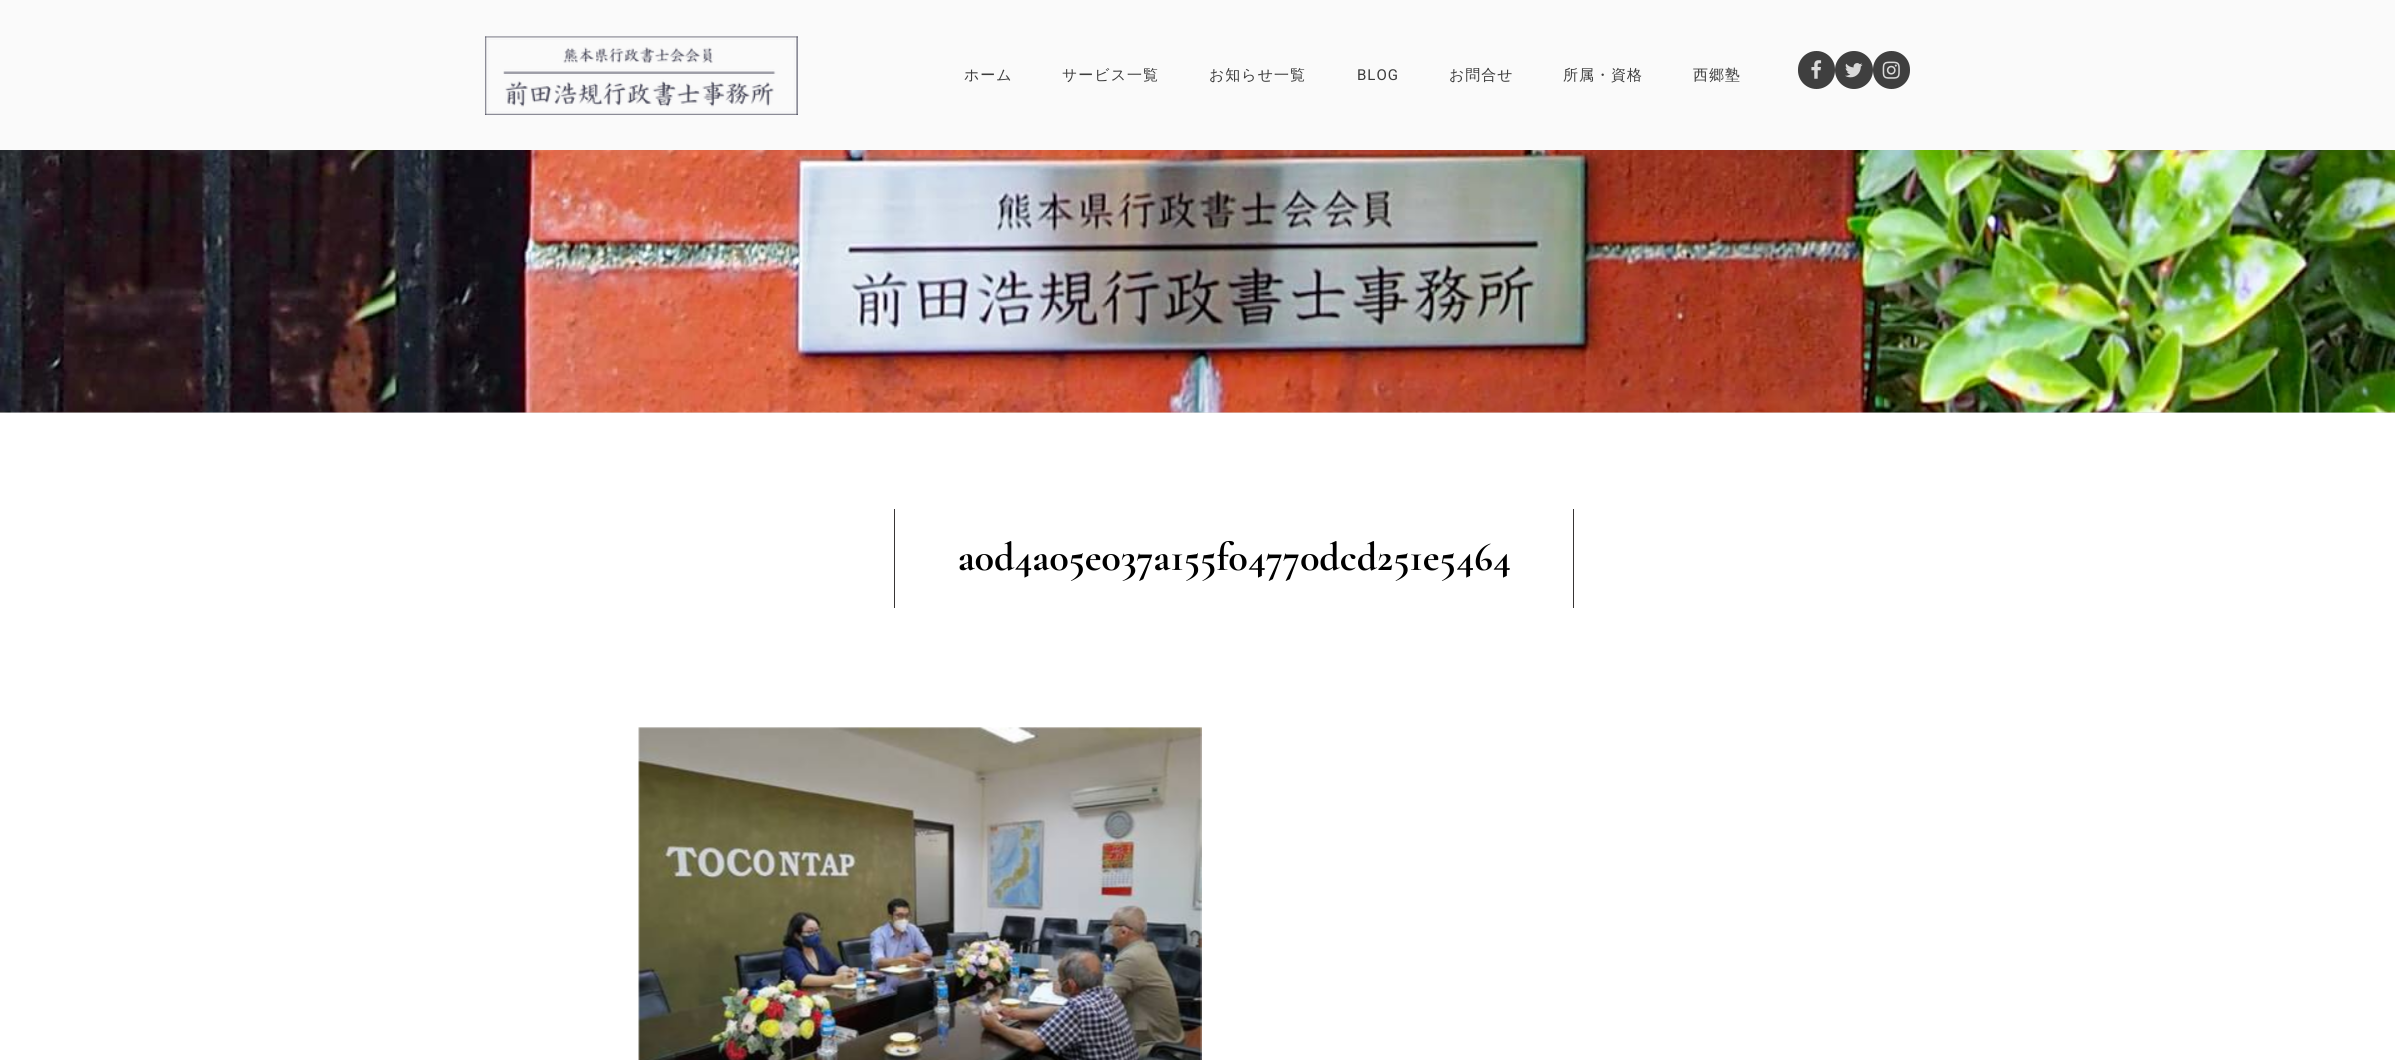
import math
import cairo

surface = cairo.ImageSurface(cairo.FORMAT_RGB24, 2395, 1060)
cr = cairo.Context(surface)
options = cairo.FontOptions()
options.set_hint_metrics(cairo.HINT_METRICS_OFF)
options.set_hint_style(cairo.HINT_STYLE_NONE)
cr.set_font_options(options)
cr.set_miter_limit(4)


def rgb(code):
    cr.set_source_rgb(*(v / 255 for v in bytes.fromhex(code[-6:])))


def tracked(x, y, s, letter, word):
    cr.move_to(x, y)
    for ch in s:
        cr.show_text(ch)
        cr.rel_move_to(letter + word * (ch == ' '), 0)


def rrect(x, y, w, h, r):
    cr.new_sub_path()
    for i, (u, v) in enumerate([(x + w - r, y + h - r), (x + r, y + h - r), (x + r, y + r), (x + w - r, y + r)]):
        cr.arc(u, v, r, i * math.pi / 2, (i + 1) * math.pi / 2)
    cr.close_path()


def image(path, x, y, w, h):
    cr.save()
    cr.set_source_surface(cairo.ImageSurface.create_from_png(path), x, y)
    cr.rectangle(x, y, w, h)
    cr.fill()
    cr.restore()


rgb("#ffffff")
cr.paint()
rgb("#fafafa")
cr.rectangle(0, 0, 2395, 150)
cr.fill()
image("img/1.png", 485, 36, 313, 79)
rgb("#3f3f3f")
rrect(1798, 51, 37, 38, 18.5)
cr.fill()
image("img/2.png", 1811, 60, 11, 19)
cr.arc(1854, 70, 19, 0, 2 * math.pi)
cr.fill()
image("img/3.png", 1845, 63, 18, 15)
rrect(1873, 51, 37, 38, 18.5)
cr.fill()
image("img/4.png", 1882, 61, 18, 18)
rgb("#dddddd")
cr.rectangle(0, 412, 2395, 1)
cr.fill()
image("img/5.png", 0, 150, 2395, 263)
rgb("#383535")
cr.rectangle(1573, 509, 1, 99)
cr.fill()
cr.rectangle(894, 509, 1, 99)
cr.fill()
image("img/6.png", 638, 727, 564, 333)
cr.select_font_face("WenQuanYi Zen Hei Medium")
cr.set_font_size(15)
rgb("#3c3c3c")
for x, y, s in [
    (964, 80, "ホーム"),
    (1062, 80, "サービス一覧"),
    (1209, 80, "お知らせ一覧"),
]:
    tracked(x, y, s, 1, 0)
cr.select_font_face("Roboto")
tracked(1357, 80, "BLOG", 1, 0)
cr.select_font_face("WenQuanYi Zen Hei Medium")
for x, y, s in [
    (1449, 80, "お問合せ"),
    (1563, 80, "所属・資格"),
    (1693, 80, "西郷塾"),
]:
    tracked(x, y, s, 1, 0)
cr.select_font_face("Cormorant Garamond", cairo.FONT_SLANT_NORMAL, cairo.FONT_WEIGHT_BOLD)
cr.set_font_size(40)
rgb("#000000")
cr.move_to(958, 570)
cr.show_text("a0d4a05e037a155f04770dcd251e5464")
surface.write_to_png("page.png")
